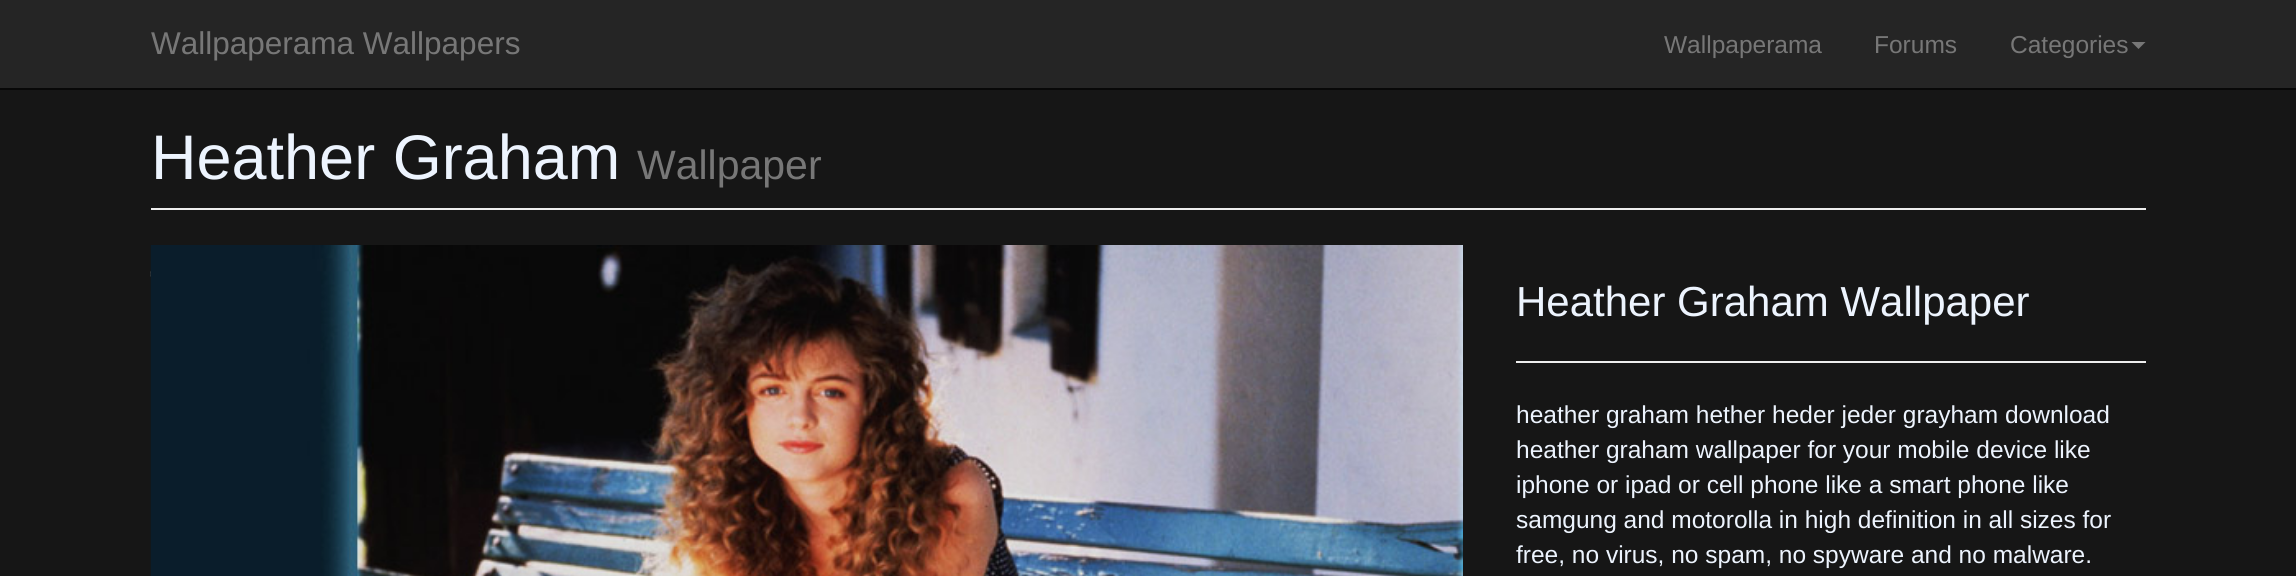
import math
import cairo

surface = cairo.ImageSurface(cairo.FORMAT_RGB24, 2296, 576)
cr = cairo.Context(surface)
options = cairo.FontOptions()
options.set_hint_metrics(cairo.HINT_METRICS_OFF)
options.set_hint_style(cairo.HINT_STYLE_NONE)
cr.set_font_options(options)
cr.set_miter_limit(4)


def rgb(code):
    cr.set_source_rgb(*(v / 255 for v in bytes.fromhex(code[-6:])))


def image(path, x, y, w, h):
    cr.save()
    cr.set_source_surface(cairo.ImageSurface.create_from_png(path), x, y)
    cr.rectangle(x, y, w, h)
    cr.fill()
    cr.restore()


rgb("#161616")
cr.paint()
rgb("#252525")
cr.rectangle(0, 0, 2296, 88)
cr.fill()
rgb("#080808")
cr.rectangle(0, 88, 2296, 2)
cr.fill()
rgb("#777777")
cr.new_path()
cr.move_to(2131.5, 42)
cr.line_to(2145.5, 42)
cr.line_to(2138.5, 49)
cr.close_path()
cr.fill()
rgb("#eeeeee")
cr.rectangle(151, 208, 1995, 2)
cr.fill()
image("img/1.png", 150, 271, 1, 6)
image("img/2.png", 150, 245, 1313, 331)
cr.rectangle(1516, 361, 630, 2)
cr.fill()
cr.select_font_face("Liberation Sans")
cr.set_font_size(31.5)
rgb("#777777")
cr.move_to(151, 54)
cr.show_text("Wallpaperama Wallpapers")
cr.set_font_size(24.5)
for x, y, s in [
    (1664, 53, "Wallpaperama"),
    (1874, 53, "Forums"),
    (2010, 53, "Categories"),
]:
    cr.move_to(x, y)
    cr.show_text(s)
cr.set_font_size(63)
rgb("#edf4fe")
cr.move_to(151, 179)
cr.show_text("Heather Graham")
cr.set_font_size(41)
rgb("#777777")
cr.move_to(637, 179)
cr.show_text("Wallpaper")
cr.set_font_size(42)
rgb("#edf4fe")
cr.move_to(1516, 316)
cr.show_text("Heather Graham Wallpaper")
cr.set_font_size(24.5)
for x, y, s in [
    (1516, 423, "heather graham hether heder jeder grayham download"),
    (1516, 458, "heather graham wallpaper for your mobile device like"),
    (1516, 493, "iphone or ipad or cell phone like a smart phone like"),
    (1516, 528, "samgung and motorolla in high definition in all sizes for"),
    (1516, 563, "free, no virus, no spam, no spyware and no malware."),
]:
    cr.move_to(x, y)
    cr.show_text(s)
surface.write_to_png("page.png")
